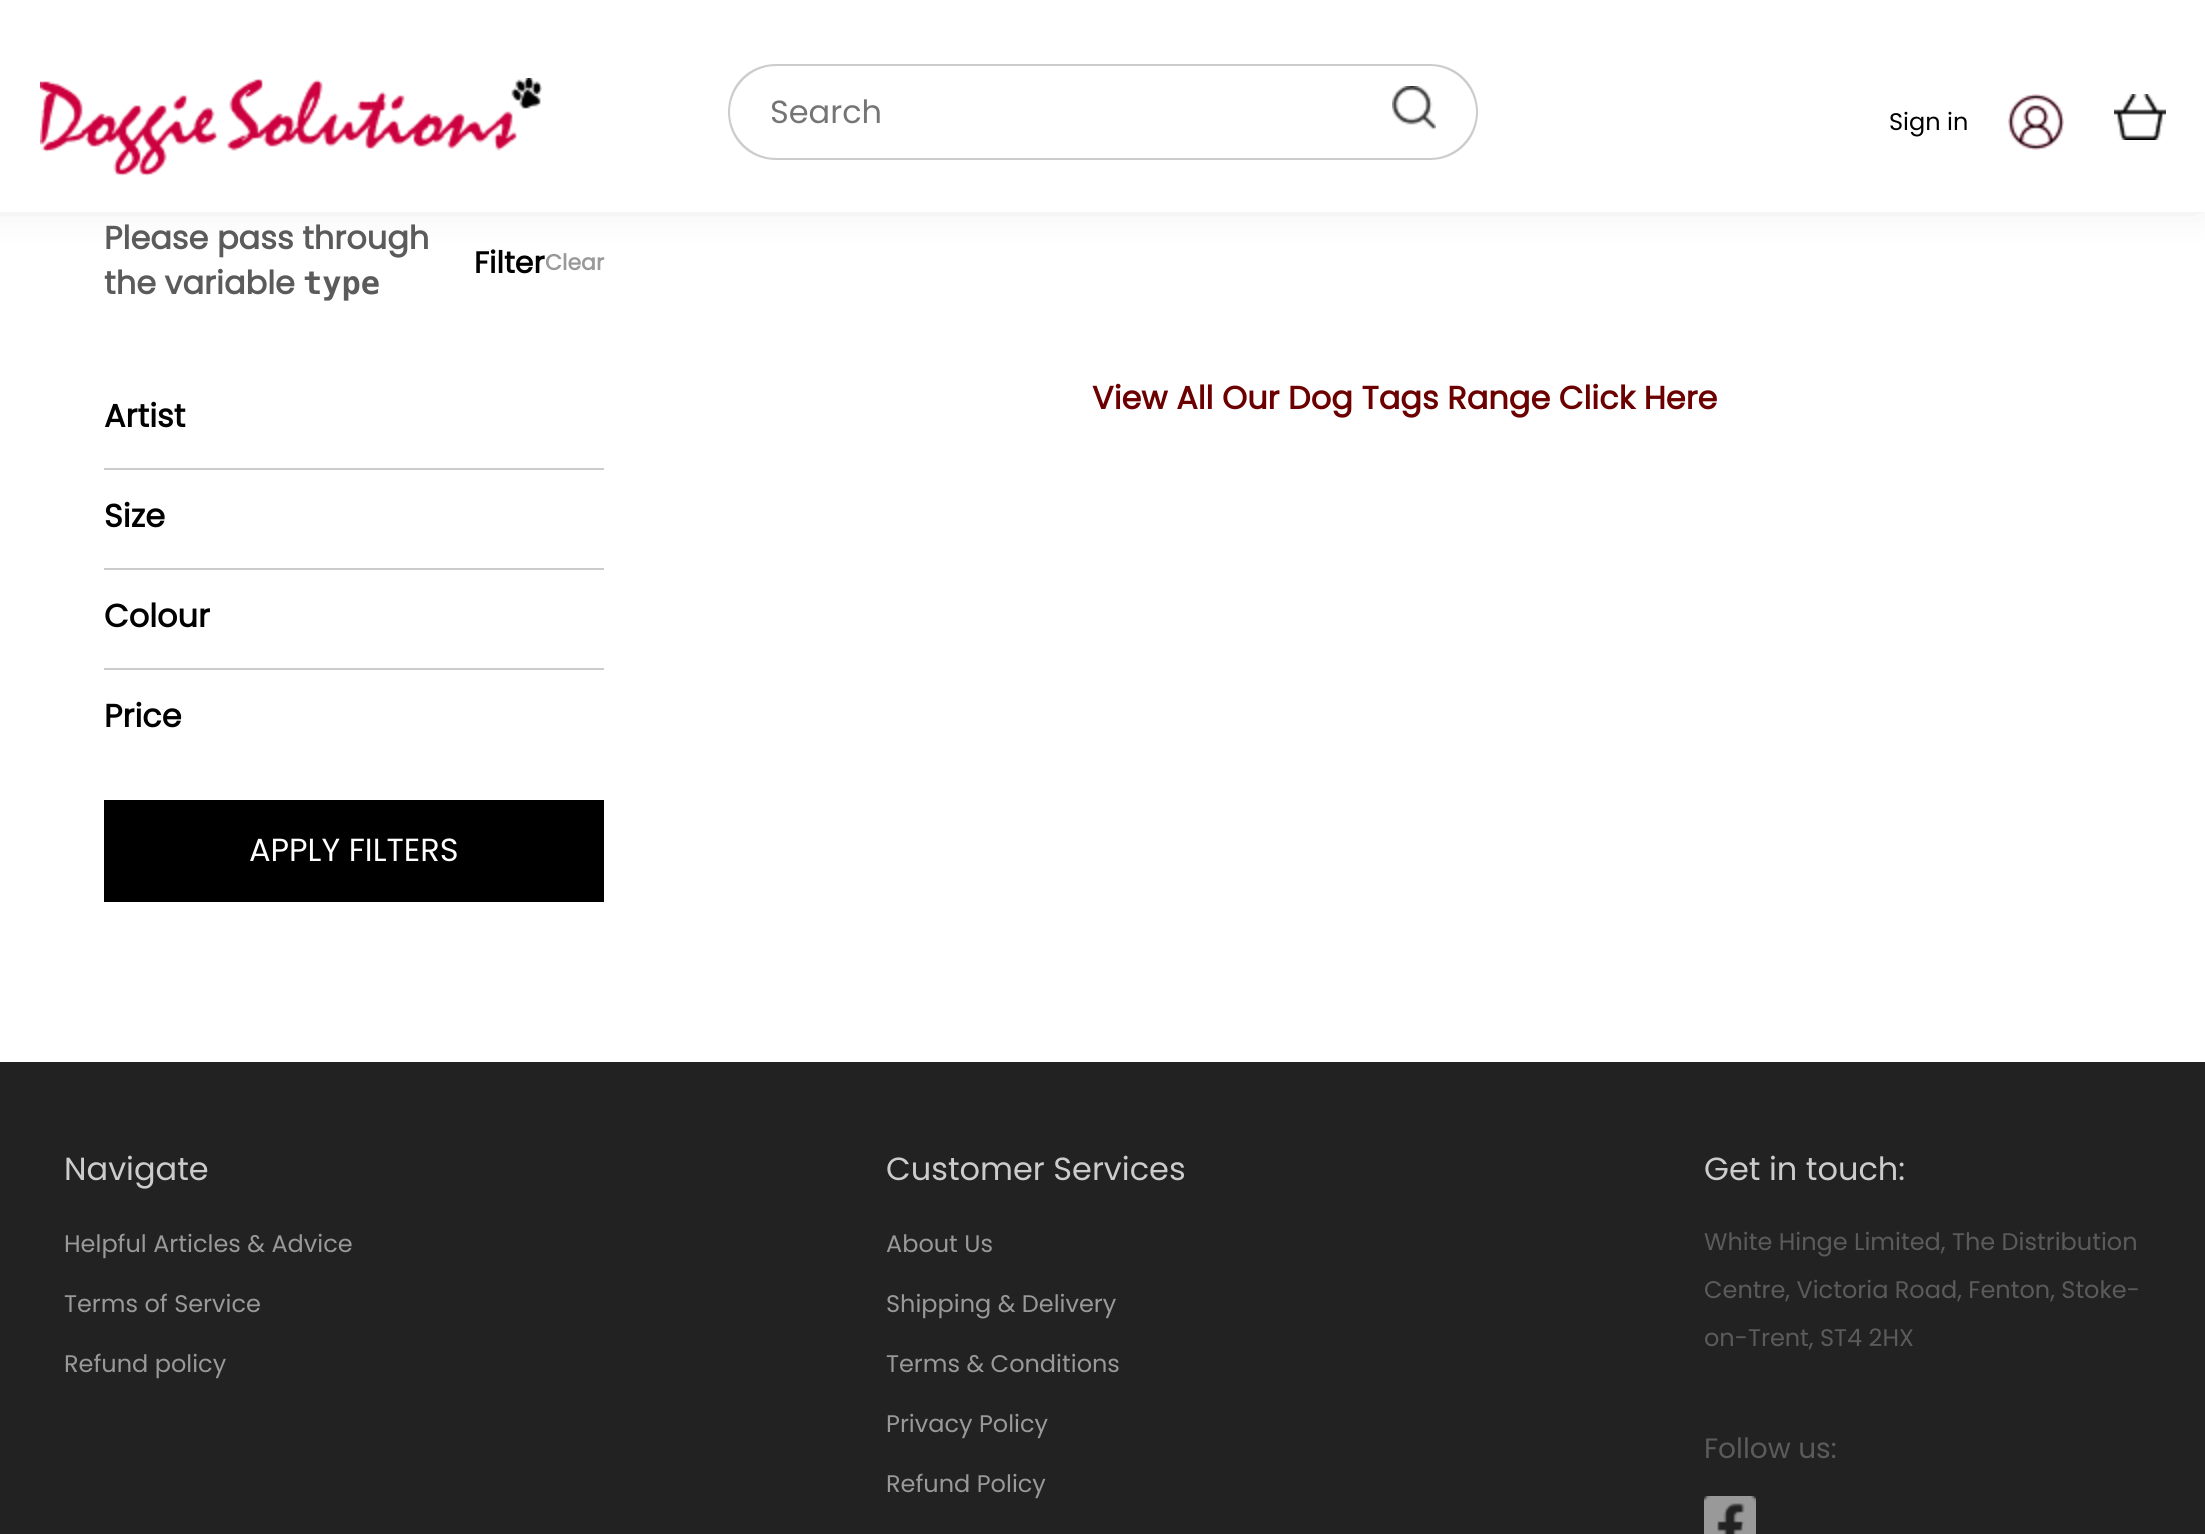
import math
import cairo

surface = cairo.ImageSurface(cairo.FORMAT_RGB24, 2205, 1534)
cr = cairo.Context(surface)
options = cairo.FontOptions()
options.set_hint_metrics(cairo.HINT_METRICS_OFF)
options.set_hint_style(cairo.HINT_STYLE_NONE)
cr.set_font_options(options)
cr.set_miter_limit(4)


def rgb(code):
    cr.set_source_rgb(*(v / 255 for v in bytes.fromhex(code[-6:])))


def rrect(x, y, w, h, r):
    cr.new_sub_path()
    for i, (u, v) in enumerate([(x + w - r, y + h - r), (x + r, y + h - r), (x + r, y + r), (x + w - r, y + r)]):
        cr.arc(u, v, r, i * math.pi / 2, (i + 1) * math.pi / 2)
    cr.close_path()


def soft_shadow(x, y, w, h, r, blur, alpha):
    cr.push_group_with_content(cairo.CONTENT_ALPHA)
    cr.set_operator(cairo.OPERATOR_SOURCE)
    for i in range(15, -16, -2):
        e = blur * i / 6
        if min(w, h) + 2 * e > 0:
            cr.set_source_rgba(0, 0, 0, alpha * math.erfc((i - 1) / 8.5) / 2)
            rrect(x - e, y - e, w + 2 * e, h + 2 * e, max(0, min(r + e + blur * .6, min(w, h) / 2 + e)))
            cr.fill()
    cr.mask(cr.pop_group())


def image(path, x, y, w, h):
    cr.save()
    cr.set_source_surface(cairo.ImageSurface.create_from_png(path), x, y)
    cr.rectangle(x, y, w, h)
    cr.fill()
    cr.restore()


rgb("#ffffff")
cr.paint()
rgb("#dddddd")
soft_shadow(-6, -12, 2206, 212, 0, 20, 1)
rgb("#ffffff")
cr.rectangle(0, 0, 2205, 212)
cr.fill()
image("img/1.png", 40, 78, 502, 99)
rgb("#cccccc")
cr.set_fill_rule(cairo.FILL_RULE_EVEN_ODD)
cr.new_path()
cr.move_to(776, 64)
cr.line_to(1380, 64)
cr.line_to(1380, 160)
cr.line_to(776, 160)
cr.curve_to(749, 160, 728, 139, 728, 112)
cr.curve_to(728, 85, 749, 64, 776, 64)
cr.close_path()
cr.move_to(776, 66)
cr.line_to(1380, 66)
cr.line_to(1380, 158)
cr.line_to(776, 158)
cr.curve_to(751, 158, 730, 137, 730, 112)
cr.curve_to(730, 87, 751, 66, 776, 66)
cr.close_path()
cr.fill()
cr.new_path()
cr.move_to(1380, 64)
cr.line_to(1430, 64)
cr.curve_to(1457, 64, 1478, 85, 1478, 112)
cr.curve_to(1478, 139, 1457, 160, 1430, 160)
cr.line_to(1380, 160)
cr.close_path()
cr.move_to(1380, 66)
cr.line_to(1430, 66)
cr.curve_to(1455, 66, 1476, 87, 1476, 112)
cr.curve_to(1476, 137, 1455, 158, 1430, 158)
cr.line_to(1380, 158)
cr.close_path()
cr.fill()
image("img/2.png", 1392, 86, 44, 44)
image("img/3.png", 2008, 94, 56, 56)
image("img/4.png", 2114, 94, 52, 46)
for x, y, w, h, color in [
    (104, 468, 500, 2, "#cccccc"),
    (104, 568, 500, 2, "#cccccc"),
    (104, 668, 500, 2, "#cccccc"),
    (104, 800, 500, 102, "#000000"),
    (0, 1062, 2205, 472, "#222222"),
]:
    rgb(color)
    cr.rectangle(x, y, w, h)
    cr.fill()
image("img/5.png", 1704, 1496, 52, 38)
cr.select_font_face("Poppins")
cr.set_font_size(32)
rgb("#757575")
cr.move_to(770, 123)
cr.show_text("Search")
cr.set_font_size(24)
rgb("#000000")
cr.move_to(1889, 130)
cr.show_text("Sign in")
cr.select_font_face("Poppins", cairo.FONT_SLANT_NORMAL, cairo.FONT_WEIGHT_BOLD)
cr.set_font_size(32)
rgb("#5b5b5b")
cr.move_to(104, 249)
cr.show_text("Please pass through")
cr.move_to(104, 294)
cr.show_text("the variable")
cr.select_font_face("DejaVu Sans Mono", cairo.FONT_SLANT_NORMAL, cairo.FONT_WEIGHT_BOLD)
cr.move_to(303, 294)
cr.show_text("type")
cr.select_font_face("Poppins", cairo.FONT_SLANT_NORMAL, cairo.FONT_WEIGHT_BOLD)
cr.set_font_size(30)
rgb("#000000")
cr.move_to(474, 273)
cr.show_text("Filter")
cr.set_font_size(22)
rgb("#999999")
cr.move_to(545, 270)
cr.show_text("Clear")
cr.set_font_size(32)
rgb("#000000")
for x, y, s in [
    (104, 427, "Artist"),
    (104, 527, "Size"),
    (104, 627, "Colour"),
    (104, 727, "Price"),
]:
    cr.move_to(x, y)
    cr.show_text(s)
cr.select_font_face("Poppins")
rgb("#ffffff")
cr.move_to(249, 861)
cr.show_text("APPLY FILTERS")
cr.select_font_face("Poppins", cairo.FONT_SLANT_NORMAL, cairo.FONT_WEIGHT_BOLD)
rgb("#6c0000")
cr.move_to(1092, 409)
cr.show_text("View All Our Dog Tags Range Click Here")
cr.select_font_face("Poppins")
rgb("#cccccc")
cr.move_to(64, 1180)
cr.show_text("Navigate")
cr.set_font_size(24)
rgb("#999999")
for x, y, s in [
    (64, 1252, "Helpful Articles & Advice"),
    (64, 1312, "Terms of Service"),
    (64, 1372, "Refund policy"),
]:
    cr.move_to(x, y)
    cr.show_text(s)
cr.set_font_size(32)
rgb("#cccccc")
cr.move_to(886, 1180)
cr.show_text("Customer Services")
cr.set_font_size(24)
rgb("#999999")
for x, y, s in [
    (886, 1252, "About Us"),
    (886, 1312, "Shipping & Delivery"),
    (886, 1372, "Terms & Conditions"),
    (886, 1432, "Privacy Policy"),
    (886, 1492, "Refund Policy"),
]:
    cr.move_to(x, y)
    cr.show_text(s)
cr.set_font_size(32)
rgb("#cccccc")
cr.move_to(1704, 1180)
cr.show_text("Get in touch:")
cr.set_font_size(24)
rgb("#5b5b5b")
for x, y, s in [
    (1704, 1250, "White Hinge Limited, The Distribution"),
    (1704, 1298, "Centre, Victoria Road, Fenton, Stoke-"),
    (1704, 1346, "on-Trent, ST4 2HX"),
]:
    cr.move_to(x, y)
    cr.show_text(s)
cr.set_font_size(28)
cr.move_to(1704, 1458)
cr.show_text("Follow us:")
surface.write_to_png("page.png")
